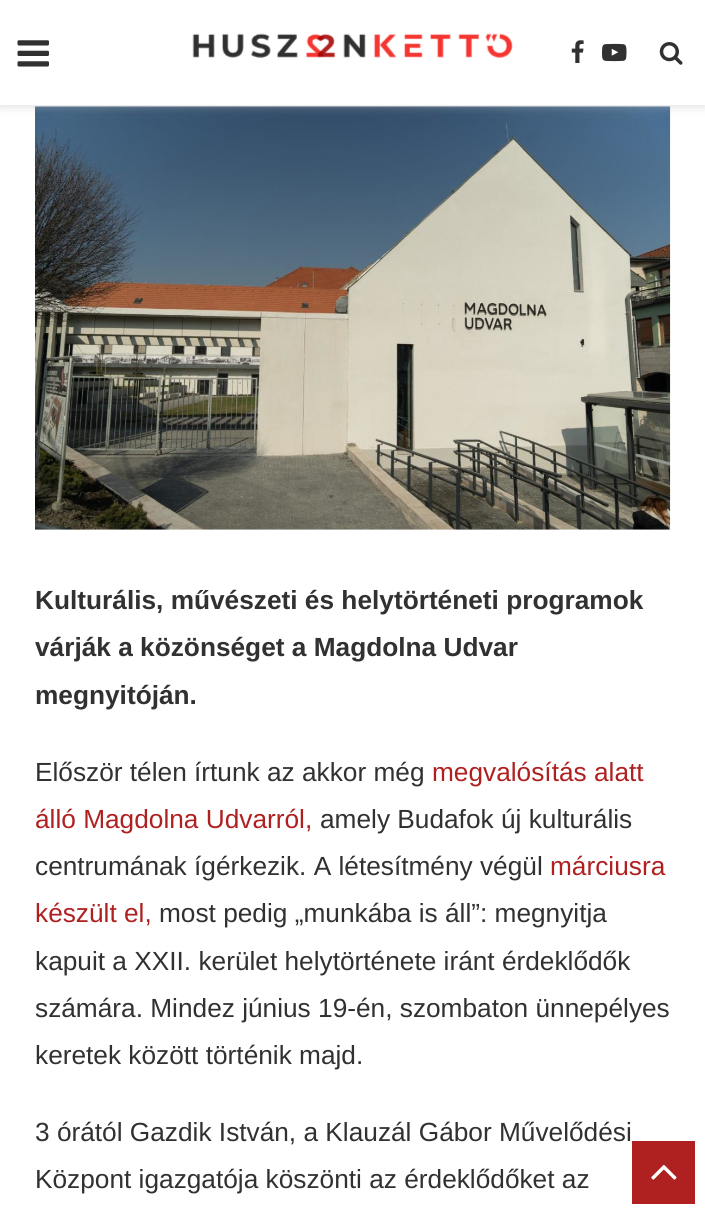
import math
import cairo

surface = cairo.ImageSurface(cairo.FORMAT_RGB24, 705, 1214)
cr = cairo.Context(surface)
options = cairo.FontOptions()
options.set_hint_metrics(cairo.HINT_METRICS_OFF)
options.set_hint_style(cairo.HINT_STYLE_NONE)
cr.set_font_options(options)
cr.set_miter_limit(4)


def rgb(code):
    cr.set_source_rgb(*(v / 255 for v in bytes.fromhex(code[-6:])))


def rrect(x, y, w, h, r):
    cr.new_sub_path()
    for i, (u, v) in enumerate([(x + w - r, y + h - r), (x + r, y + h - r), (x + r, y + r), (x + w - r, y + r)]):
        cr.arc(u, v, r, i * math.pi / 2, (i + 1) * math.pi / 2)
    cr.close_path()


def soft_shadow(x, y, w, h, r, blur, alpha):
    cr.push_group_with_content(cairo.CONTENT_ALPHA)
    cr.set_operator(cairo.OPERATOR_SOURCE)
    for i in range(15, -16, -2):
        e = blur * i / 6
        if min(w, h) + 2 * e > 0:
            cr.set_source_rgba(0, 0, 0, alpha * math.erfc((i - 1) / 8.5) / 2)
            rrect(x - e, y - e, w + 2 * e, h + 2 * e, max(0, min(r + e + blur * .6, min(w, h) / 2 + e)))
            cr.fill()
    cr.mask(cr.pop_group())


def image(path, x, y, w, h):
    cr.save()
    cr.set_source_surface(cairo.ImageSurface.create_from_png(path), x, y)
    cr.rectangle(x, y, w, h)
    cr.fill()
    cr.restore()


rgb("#ffffff")
cr.paint()
image("img/6.png", 35, 106, 636, 424)
rgb("#bebebe")
soft_shadow(0, 2, 705, 105, 0, 4.5, 0.46)
rgb("#ffffff")
cr.rectangle(0, 0, 705, 105)
cr.fill()
image("img/1.png", 17, 40, 32, 27)
image("img/2.png", 192, 33, 321, 25)
image("img/3.png", 571, 40, 13, 23)
image("img/4.png", 602, 43, 25, 19)
image("img/5.png", 659, 42, 24, 23)
rgb("#af2020")
cr.rectangle(632, 1141, 63, 63)
cr.fill()
image("img/7.png", 651, 1164, 26, 16)
cr.select_font_face("Liberation Sans", cairo.FONT_SLANT_NORMAL, cairo.FONT_WEIGHT_BOLD)
cr.set_font_size(26.25)
rgb("#313131")
for x, y, s in [
    (35, 609, "Kulturális, művészeti és helytörténeti programok"),
    (35, 656, "várják a közönséget a Magdolna Udvar"),
    (35, 704, "megnyitóján."),
]:
    cr.move_to(x, y)
    cr.show_text(s)
cr.select_font_face("Liberation Sans")
cr.move_to(35, 781)
cr.show_text("Először télen írtunk az akkor még")
rgb("#af2020")
cr.move_to(432, 781)
cr.show_text("megvalósítás alatt")
cr.move_to(35, 828)
cr.show_text("álló Magdolna Udvarról,")
rgb("#313131")
cr.move_to(320, 828)
cr.show_text("amely Budafok új kulturális")
cr.move_to(35, 875)
cr.show_text("centrumának ígérkezik. A létesítmény végül")
rgb("#af2020")
cr.move_to(550, 875)
cr.show_text("márciusra")
cr.move_to(35, 922)
cr.show_text("készült el,")
rgb("#313131")
for x, y, s in [
    (159, 922, "most pedig „munkába is áll”: megnyitja"),
    (35, 970, "kapuit a XXII. kerület helytörténete iránt érdeklődők"),
    (35, 1017, "számára. Mindez június 19-én, szombaton ünnepélyes"),
    (35, 1064, "keretek között történik majd."),
    (35, 1141, "3 órától Gazdik István, a Klauzál Gábor Művelődési"),
    (35, 1188, "Központ igazgatója köszönti az érdeklődőket az"),
]:
    cr.move_to(x, y)
    cr.show_text(s)
surface.write_to_png("page.png")
